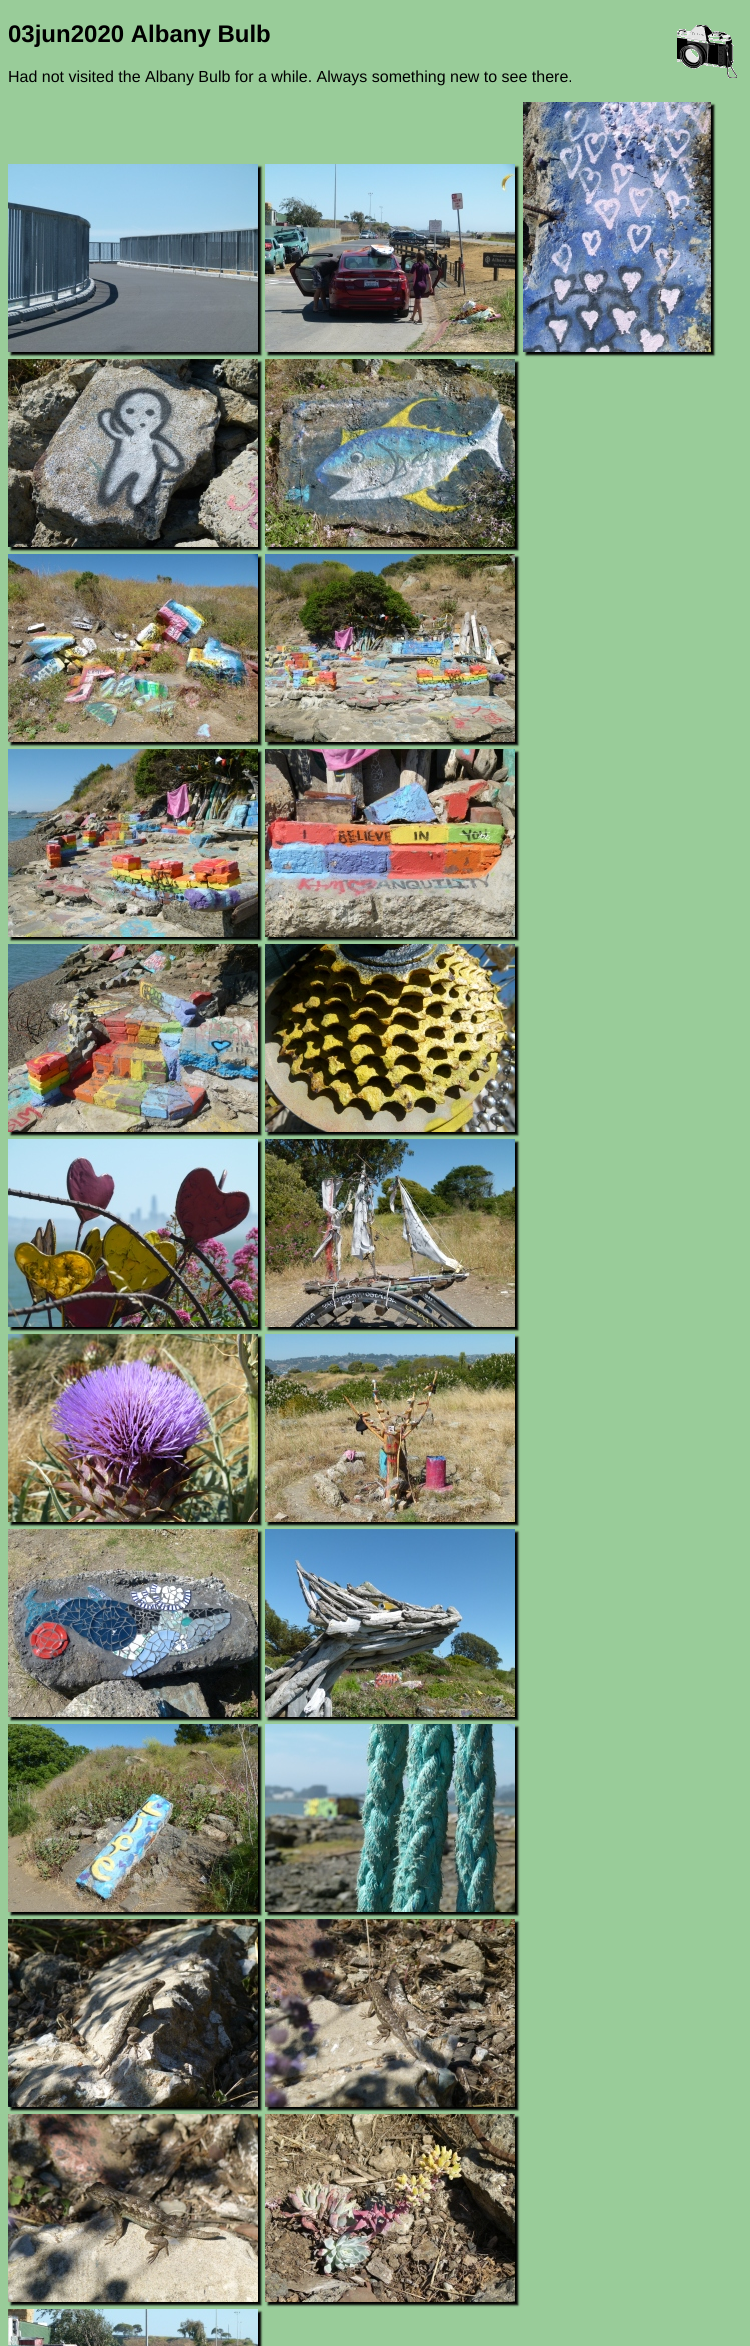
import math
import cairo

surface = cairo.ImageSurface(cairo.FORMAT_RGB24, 750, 2346)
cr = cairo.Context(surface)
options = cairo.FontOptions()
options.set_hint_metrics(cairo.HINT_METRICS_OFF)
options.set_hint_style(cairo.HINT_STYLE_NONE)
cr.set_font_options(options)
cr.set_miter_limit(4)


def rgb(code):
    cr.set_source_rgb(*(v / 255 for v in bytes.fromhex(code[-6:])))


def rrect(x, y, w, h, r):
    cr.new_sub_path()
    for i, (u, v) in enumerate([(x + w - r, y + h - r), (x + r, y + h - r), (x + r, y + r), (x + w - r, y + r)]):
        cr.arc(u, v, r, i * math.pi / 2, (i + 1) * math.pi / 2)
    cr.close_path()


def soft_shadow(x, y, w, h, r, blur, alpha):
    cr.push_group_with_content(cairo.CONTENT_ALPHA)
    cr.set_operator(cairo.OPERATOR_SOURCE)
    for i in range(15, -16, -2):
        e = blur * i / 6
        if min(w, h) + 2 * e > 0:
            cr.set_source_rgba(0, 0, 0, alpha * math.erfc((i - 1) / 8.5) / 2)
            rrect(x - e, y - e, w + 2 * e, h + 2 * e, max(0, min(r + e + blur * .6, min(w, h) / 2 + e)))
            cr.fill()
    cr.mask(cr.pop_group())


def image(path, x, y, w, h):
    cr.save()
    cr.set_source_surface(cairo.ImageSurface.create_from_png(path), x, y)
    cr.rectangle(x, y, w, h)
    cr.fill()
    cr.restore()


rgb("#99cc99")
cr.paint()
image("img/1.png", 677, 25, 60, 53)
rgb("#000000")
soft_shadow(526, 105, 188, 250, 0, 1, 1)
soft_shadow(11, 167, 250, 188, 0, 1, 1)
soft_shadow(268, 167, 250, 188, 0, 1, 1)
image("img/2.png", 523, 102, 188, 250)
image("img/3.png", 8, 164, 250, 188)
image("img/4.png", 265, 164, 250, 188)
soft_shadow(11, 362, 250, 188, 0, 1, 1)
soft_shadow(268, 362, 250, 188, 0, 1, 1)
image("img/5.png", 8, 359, 250, 188)
image("img/6.png", 265, 359, 250, 188)
soft_shadow(11, 557, 250, 188, 0, 1, 1)
soft_shadow(268, 557, 250, 188, 0, 1, 1)
image("img/7.png", 8, 554, 250, 188)
image("img/8.png", 265, 554, 250, 188)
soft_shadow(11, 752, 250, 188, 0, 1, 1)
soft_shadow(268, 752, 250, 188, 0, 1, 1)
image("img/9.png", 8, 749, 250, 188)
image("img/10.png", 265, 749, 250, 188)
soft_shadow(11, 947, 250, 188, 0, 1, 1)
soft_shadow(268, 947, 250, 188, 0, 1, 1)
image("img/11.png", 8, 944, 250, 188)
image("img/12.png", 265, 944, 250, 188)
soft_shadow(11, 1142, 250, 188, 0, 1, 1)
soft_shadow(268, 1142, 250, 188, 0, 1, 1)
image("img/13.png", 8, 1139, 250, 188)
image("img/14.png", 265, 1139, 250, 188)
soft_shadow(11, 1337, 250, 188, 0, 1, 1)
soft_shadow(268, 1337, 250, 188, 0, 1, 1)
image("img/15.png", 8, 1334, 250, 188)
image("img/16.png", 265, 1334, 250, 188)
soft_shadow(11, 1532, 250, 188, 0, 1, 1)
soft_shadow(268, 1532, 250, 188, 0, 1, 1)
image("img/17.png", 8, 1529, 250, 188)
image("img/18.png", 265, 1529, 250, 188)
soft_shadow(11, 1727, 250, 188, 0, 1, 1)
soft_shadow(268, 1727, 250, 188, 0, 1, 1)
image("img/19.png", 8, 1724, 250, 188)
image("img/20.png", 265, 1724, 250, 188)
soft_shadow(11, 1922, 250, 188, 0, 1, 1)
soft_shadow(268, 1922, 250, 188, 0, 1, 1)
image("img/21.png", 8, 1919, 250, 188)
image("img/22.png", 265, 1919, 250, 188)
soft_shadow(11, 2117, 250, 188, 0, 1, 1)
soft_shadow(268, 2117, 250, 188, 0, 1, 1)
image("img/23.png", 8, 2114, 250, 188)
image("img/24.png", 265, 2114, 250, 188)
soft_shadow(11, 2312, 250, 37, 0, 1, 1)
image("img/25.png", 8, 2309, 250, 37)
cr.select_font_face("Liberation Sans", cairo.FONT_SLANT_NORMAL, cairo.FONT_WEIGHT_BOLD)
cr.set_font_size(24)
rgb("#000000")
cr.move_to(8, 42)
cr.show_text("03jun2020 Albany Bulb")
cr.select_font_face("Liberation Sans")
cr.set_font_size(16)
cr.move_to(8, 82)
cr.show_text("Had not visited the Albany Bulb for a while. Always something new to see there.")
surface.write_to_png("page.png")
